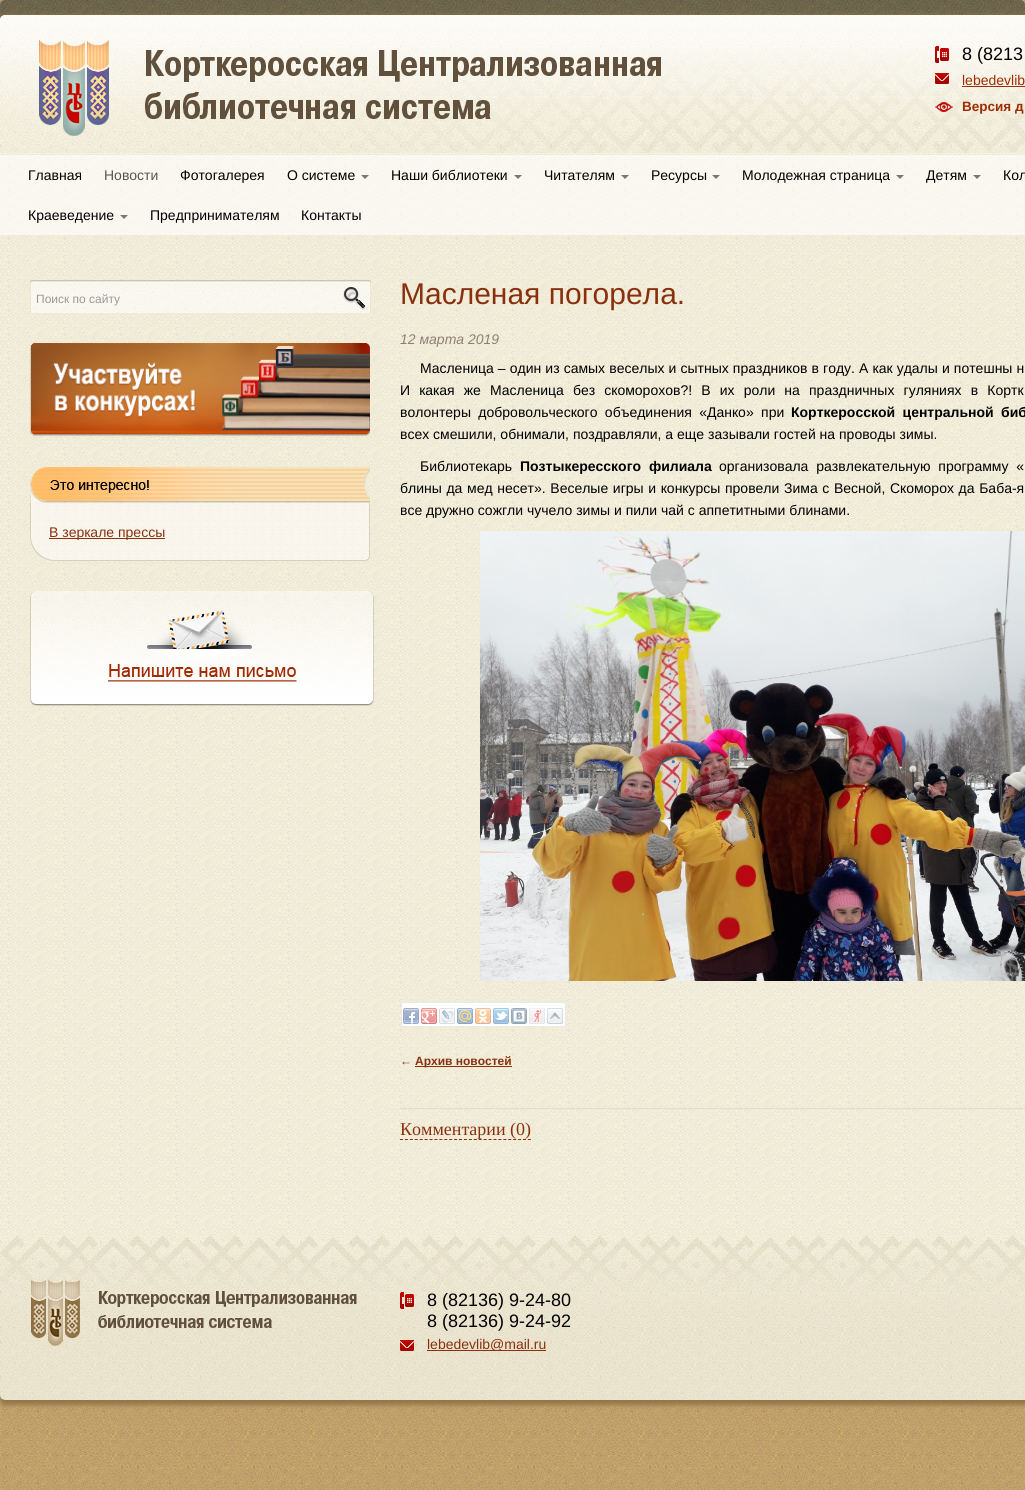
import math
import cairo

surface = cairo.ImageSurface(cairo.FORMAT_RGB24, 1025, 1490)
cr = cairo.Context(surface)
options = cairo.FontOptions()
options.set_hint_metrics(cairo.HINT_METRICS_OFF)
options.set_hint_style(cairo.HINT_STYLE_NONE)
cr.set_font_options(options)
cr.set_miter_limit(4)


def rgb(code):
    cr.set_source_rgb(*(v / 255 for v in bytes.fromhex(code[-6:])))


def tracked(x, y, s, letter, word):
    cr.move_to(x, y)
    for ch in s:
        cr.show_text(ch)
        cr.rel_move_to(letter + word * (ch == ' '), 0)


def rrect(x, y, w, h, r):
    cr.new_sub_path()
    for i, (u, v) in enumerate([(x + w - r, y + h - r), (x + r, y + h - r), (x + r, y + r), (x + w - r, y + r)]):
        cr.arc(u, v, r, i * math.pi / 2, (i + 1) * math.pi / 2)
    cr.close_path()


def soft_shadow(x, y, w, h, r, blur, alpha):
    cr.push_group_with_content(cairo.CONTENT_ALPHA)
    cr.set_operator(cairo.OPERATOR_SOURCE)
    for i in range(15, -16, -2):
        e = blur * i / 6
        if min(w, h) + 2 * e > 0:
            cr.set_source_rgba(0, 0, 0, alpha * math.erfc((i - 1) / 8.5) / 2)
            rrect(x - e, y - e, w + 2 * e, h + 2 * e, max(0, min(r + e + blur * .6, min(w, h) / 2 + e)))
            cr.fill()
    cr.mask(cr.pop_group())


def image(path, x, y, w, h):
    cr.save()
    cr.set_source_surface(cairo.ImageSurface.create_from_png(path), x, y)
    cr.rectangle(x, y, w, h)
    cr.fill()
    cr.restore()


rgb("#ffffff")
cr.paint()
image("img/1.png", 0, 0, 1025, 1490)
image("img/2.png", 0, 0, 1025, 20)
rgb("#927447")
soft_shadow(0, 15, 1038, 1220, 5, 2.5, 1)
image("img/3.png", 0, 15, 1025, 1220)
image("img/4.png", 0, 15, 1025, 139)
image("img/5.png", 39, 40, 622, 96)
image("img/6.png", 935, 46, 14, 17)
image("img/7.png", 935, 73, 14, 11)
rgb("#9e2d03")
cr.rectangle(962, 86, 63, 1)
cr.fill()
image("img/8.png", 935, 102, 18, 10)
cr.set_source_rgba(1, 1, 1, 0.6)
cr.rectangle(0, 155, 1025, 80)
cr.fill()
rgb("#777777")
cr.new_path()
cr.move_to(361, 175)
cr.line_to(369, 175)
cr.line_to(365, 179)
cr.close_path()
cr.fill()
cr.new_path()
cr.move_to(514, 175)
cr.line_to(522, 175)
cr.line_to(518, 179)
cr.close_path()
cr.fill()
cr.new_path()
cr.move_to(621, 175)
cr.line_to(629, 175)
cr.line_to(625, 179)
cr.close_path()
cr.fill()
cr.new_path()
cr.move_to(712, 175)
cr.line_to(720, 175)
cr.line_to(716, 179)
cr.close_path()
cr.fill()
cr.new_path()
cr.move_to(896, 175)
cr.line_to(904, 175)
cr.line_to(900, 179)
cr.close_path()
cr.fill()
cr.new_path()
cr.move_to(973, 175)
cr.line_to(981, 175)
cr.line_to(977, 179)
cr.close_path()
cr.fill()
cr.new_path()
cr.move_to(120, 215)
cr.line_to(128, 215)
cr.line_to(124, 219)
cr.close_path()
cr.fill()
image("img/9.png", 30, 280, 341, 33)
image("img/10.png", 30, 343, 340, 94)
image("img/11.png", 30, 467, 340, 36)
image("img/12.png", 30, 503, 340, 58)
rgb("#d4d1c1")
cr.set_fill_rule(cairo.FILL_RULE_EVEN_ODD)
cr.new_path()
cr.move_to(30, 503)
cr.line_to(370, 503)
cr.line_to(370, 556)
cr.curve_to(370, 559, 368, 561, 365, 561)
cr.line_to(55, 561)
cr.curve_to(41, 561, 30, 550, 30, 536)
cr.close_path()
cr.move_to(31, 503)
cr.line_to(369, 503)
cr.line_to(369, 556)
cr.curve_to(369, 558, 367, 560, 365, 560)
cr.line_to(55, 560)
cr.curve_to(42, 560, 31, 549, 31, 536)
cr.close_path()
cr.fill()
rgb("#89310f")
cr.rectangle(49, 538, 116, 1)
cr.fill()
image("img/13.png", 30, 591, 344, 115)
image("img/14.png", 480, 531, 545, 450)
rgb("#ffffff")
rrect(401.5, 1002.5, 164, 24, 1.5)
cr.fill_preserve()
rgb("#e9e9e9")
cr.set_line_width(1)
cr.stroke()
image("img/15.png", 403, 1008, 16, 16)
image("img/16.png", 421, 1008, 16, 16)
image("img/17.png", 439, 1008, 16, 16)
image("img/18.png", 457, 1008, 16, 16)
image("img/19.png", 475, 1008, 16, 16)
image("img/20.png", 493, 1008, 16, 16)
image("img/21.png", 511, 1008, 16, 16)
image("img/22.png", 529, 1008, 16, 16)
image("img/23.png", 547, 1008, 16, 16)
rgb("#89310f")
cr.rectangle(415, 1066, 97, 1)
cr.fill()
rgb("#dddddd")
cr.rectangle(400, 1108, 625, 1)
cr.fill()
cr.new_path()
cr.move_to(400, 1139.5)
cr.line_to(531, 1139.5)
rgb("#89310f")
cr.set_dash([3, 1.92])
cr.stroke()
rgb("#927447")
soft_shadow(0, 1240, 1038, 165, 5, 2.5, 1)
image("img/24.png", 0, 1235, 1025, 165)
image("img/25.png", 31, 1280, 326, 66)
image("img/26.png", 400, 1292, 14, 17)
image("img/7.png", 400, 1340, 14, 11)
rgb("#89310f")
cr.rectangle(427, 1350, 119, 1)
cr.fill()
cr.select_font_face("Liberation Sans")
cr.set_font_size(18)
rgb("#000000")
cr.move_to(962, 60)
cr.show_text("8 (8213")
cr.set_font_size(14)
rgb("#9e2d03")
cr.move_to(962, 85)
cr.show_text("lebedevlib")
cr.select_font_face("Liberation Sans", cairo.FONT_SLANT_NORMAL, cairo.FONT_WEIGHT_BOLD)
cr.set_font_size(13.5)
cr.move_to(962, 111)
cr.show_text("Версия д")
cr.select_font_face("Liberation Sans")
cr.set_font_size(14)
rgb("#000000")
cr.move_to(28, 180)
cr.show_text("Главная")
rgb("#555555")
cr.move_to(104, 180)
cr.show_text("Новости")
rgb("#000000")
for x, y, s in [
    (180, 180, "Фотогалерея"),
    (287, 180, "О системе"),
    (391, 180, "Наши библиотеки"),
    (544, 180, "Читателям"),
    (651, 180, "Ресурсы"),
    (742, 180, "Молодежная страница"),
    (926, 180, "Детям"),
    (1003, 180, "Кол"),
    (28, 220, "Краеведение"),
    (150, 220, "Предпринимателям"),
    (301, 220, "Контакты"),
]:
    cr.move_to(x, y)
    cr.show_text(s)
cr.set_font_size(12)
rgb("#999999")
cr.move_to(36, 303)
cr.show_text("Поиск по сайту")
cr.set_font_size(14)
rgb("#89310f")
cr.move_to(49, 537)
cr.show_text("В зеркале прессы")
cr.set_font_size(30)
cr.move_to(400, 304)
cr.show_text("Масленая погорела.")
cr.select_font_face("Liberation Sans", cairo.FONT_SLANT_ITALIC)
cr.set_font_size(14)
rgb("#8f7f79")
cr.move_to(400, 344)
cr.show_text("12 марта 2019")
cr.select_font_face("Liberation Sans")
rgb("#000000")
tracked(420, 373, "Масленица – один из самых веселых и сытных праздников в году. А как удалы и потешны н", 0, 0.2)
tracked(400, 395, "И какая же Масленица без скоморохов?! В их роли на праздничных гуляниях в Кортк", 0, 5.25)
tracked(400, 417, "волонтеры добровольческого объединения «Данко» при", 0, 3.5)
cr.select_font_face("Liberation Sans", cairo.FONT_SLANT_NORMAL, cairo.FONT_WEIGHT_BOLD)
tracked(791, 417, "Корткеросской центральной биб", 0, 3.5)
cr.select_font_face("Liberation Sans")
cr.move_to(400, 439)
cr.show_text("всех смешили, обнимали, поздравляли, а еще зазывали гостей на проводы зимы.")
cr.move_to(420, 471)
cr.show_text("Библиотекарь")
cr.select_font_face("Liberation Sans", cairo.FONT_SLANT_NORMAL, cairo.FONT_WEIGHT_BOLD)
tracked(520, 471, "Позтыкересского филиала", 0, 4)
cr.select_font_face("Liberation Sans")
tracked(719, 471, "организовала развлекательную программу «", 0, 4)
tracked(400, 493, "блины да мед несет». Веселые игры и конкурсы провели Зима с Весной, Скоморох да Баба-я", 0, 0.75)
cr.move_to(400, 515)
cr.show_text("все дружно сожгли чучело зимы и пили чай с аппетитными блинами.")
cr.select_font_face("Liberation Sans", cairo.FONT_SLANT_NORMAL, cairo.FONT_WEIGHT_BOLD)
cr.set_font_size(12)
rgb("#89310f")
cr.move_to(400, 1065)
cr.show_text("←")
cr.move_to(415, 1065)
cr.show_text("Архив новостей")
cr.select_font_face("Liberation Serif")
cr.set_font_size(18)
cr.move_to(400, 1135)
cr.show_text("Комментарии (0)")
cr.select_font_face("Liberation Sans")
rgb("#000000")
cr.move_to(427, 1306)
cr.show_text("8 (82136) 9-24-80")
cr.move_to(427, 1327)
cr.show_text("8 (82136) 9-24-92")
cr.set_font_size(14)
rgb("#89310f")
cr.move_to(427, 1349)
cr.show_text("lebedevlib@mail.ru")
surface.write_to_png("page.png")
